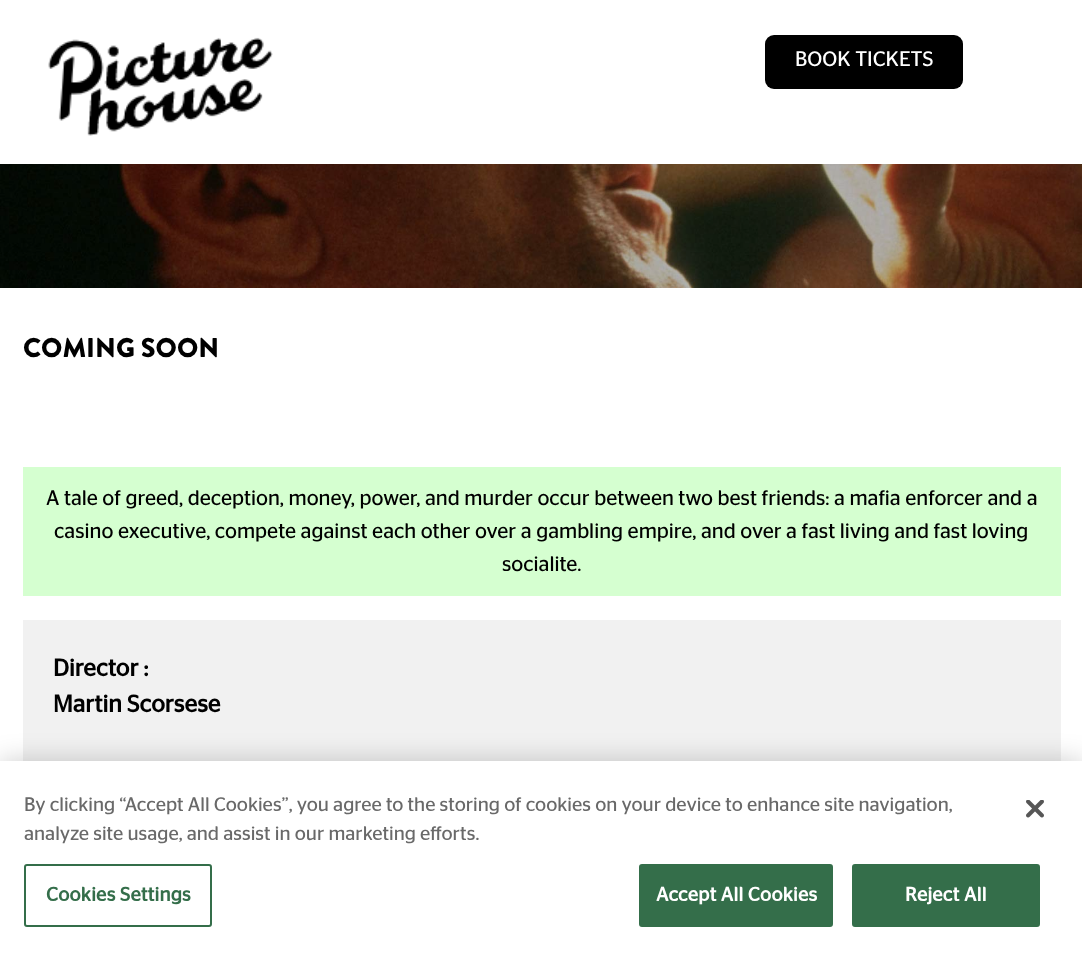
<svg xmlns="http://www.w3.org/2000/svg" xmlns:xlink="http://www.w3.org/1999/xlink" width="1082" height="956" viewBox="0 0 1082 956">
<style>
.cls-1{font:21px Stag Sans;fill:#ffffff}
.cls-2{font:900 27px Brandon Grotesque;fill:#000000}
.cls-3{font:21px Stag Sans;fill:#000000}
.cls-4{font:bold 24px Stag Sans;fill:#000000}
.cls-5{font:19.5px Stag Sans;fill:#696969}
.cls-6{font:bold 19.5px Stag Sans;letter-spacing:0.25px;fill:#346e4a}
.cls-7{font:bold 19.5px Stag Sans;letter-spacing:0.25px;fill:#ffffff}
</style>
<rect width="100%" height="100%" fill="#ffffff"/>
<image xlink:href="image0.png" x="48" y="37" width="225" height="99"/>
<rect fill="#000000" x="765" y="35" width="198" height="54" rx="9"/>
<image xlink:href="image1.png" x="0" y="164" width="1082" height="124"/>
<rect fill="#d5ffd0" x="23" y="467" width="1038" height="129"/>
<rect fill="#f1f1f1" x="23" y="620" width="1038" height="141"/>
<rect fill="#000000" fill-opacity="0.2" filter="blur(13.5px)" x="0" y="761" width="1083" height="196"/>
<rect fill="#ffffff" x="0" y="761" width="1082" height="195"/>
<rect fill="none" stroke="#346e4a" stroke-width="2" x="25" y="865" width="186" height="61" rx="2"/>
<rect fill="#346e4a" stroke="#346e4a" stroke-width="2" x="640" y="865" width="192" height="61" rx="2"/>
<rect fill="#346e4a" stroke="#346e4a" stroke-width="2" x="853" y="865" width="186" height="61" rx="2"/>
<image xlink:href="image2.png" x="1026" y="800" width="18" height="18"/>
<text class="cls-1" x="795" y="66">BOOK TICKETS</text>
<text class="cls-2" x="23" y="357">COMING SOON</text>
<text class="cls-3" x="46" y="505">A tale of greed, deception, money, power, and murder occur between two best friends: a mafia enforcer and a</text>
<text class="cls-3" x="54" y="538">casino executive, compete against each other over a gambling empire, and over a fast living and fast loving</text>
<text class="cls-3" x="502" y="571">socialite.</text>
<text class="cls-4"><tspan x="53" y="676">Director :</tspan><tspan x="53" y="712">Martin Scorsese</tspan></text>
<text class="cls-5"><tspan x="24" y="811">By clicking “Accept All Cookies”, you agree to the storing of cookies on your device to enhance site navigation,</tspan><tspan x="24" y="840">analyze site usage, and assist in our marketing efforts.</tspan></text>
<text class="cls-6" x="46" y="901">Cookies Settings</text>
<text class="cls-7" x="656" y="901">Accept All Cookies</text>
<text class="cls-7" x="905" y="901">Reject All</text>
</svg>
